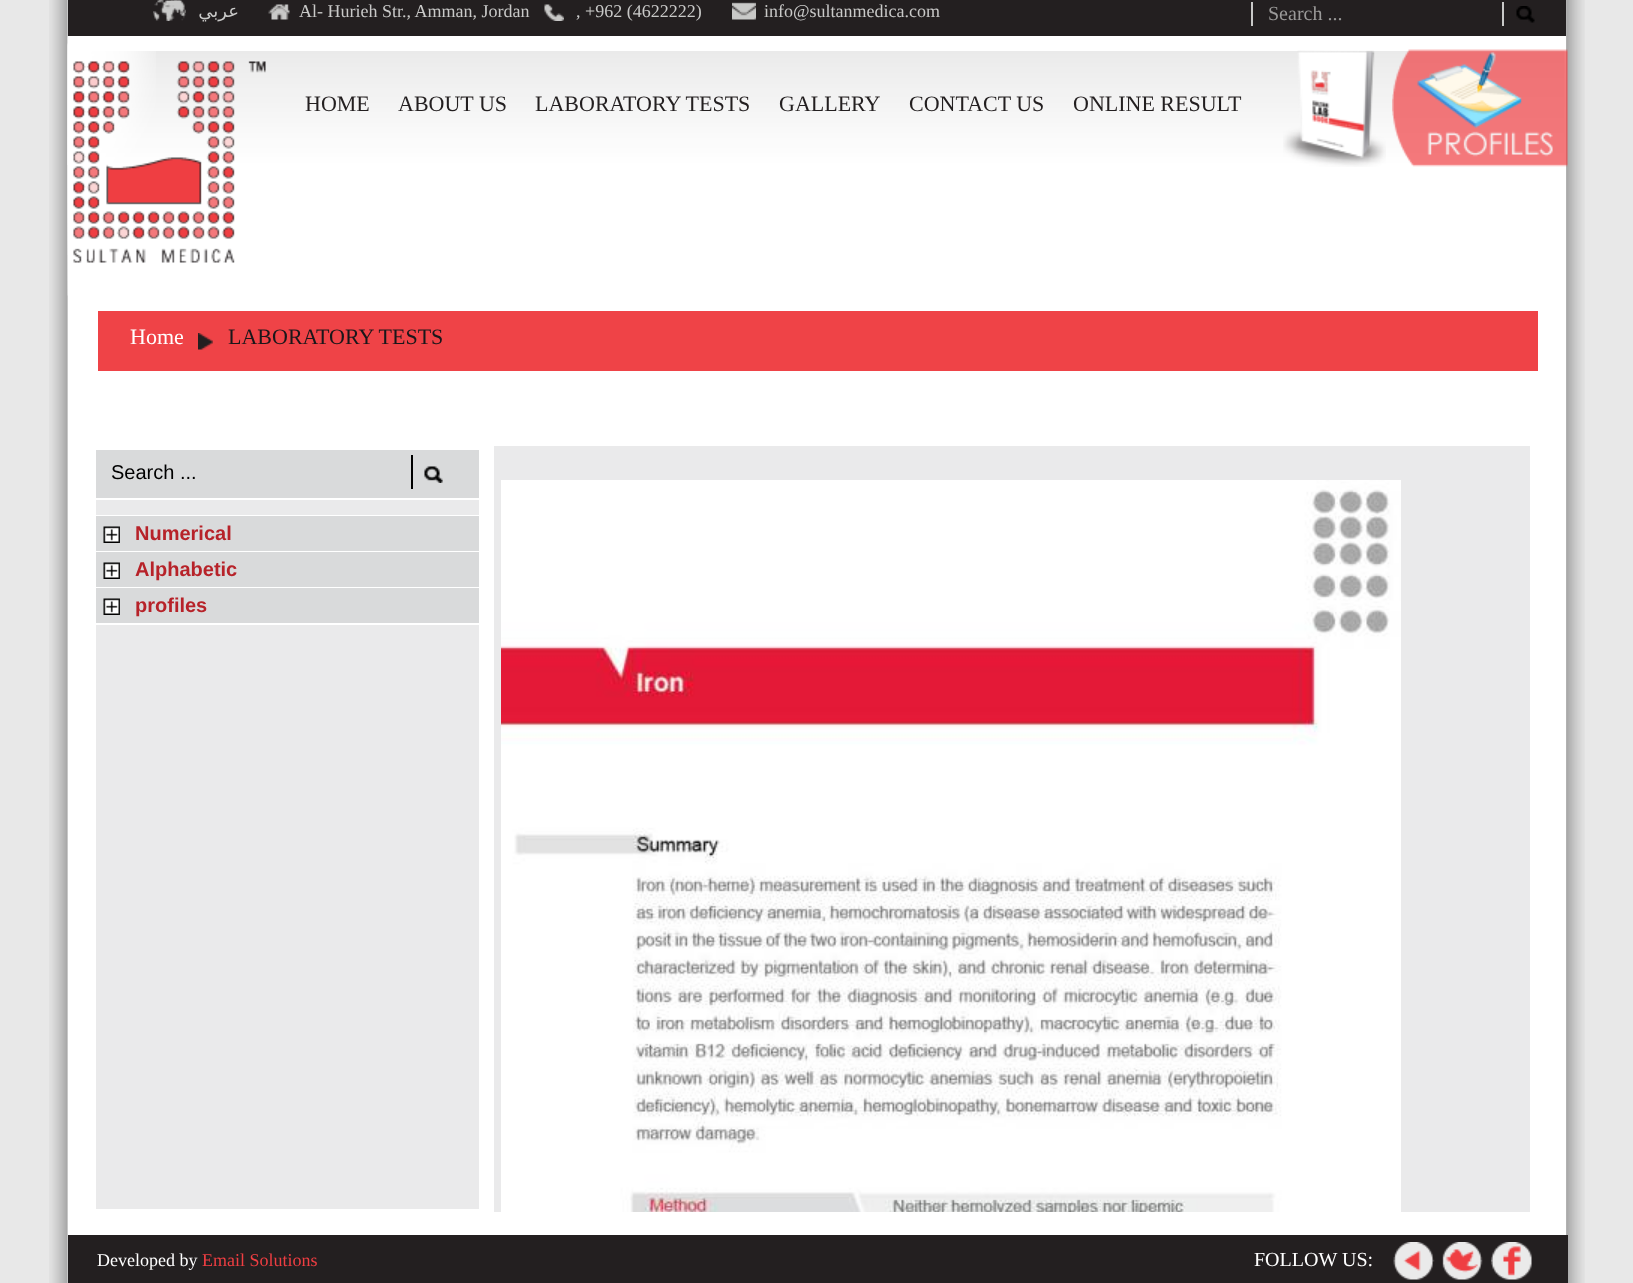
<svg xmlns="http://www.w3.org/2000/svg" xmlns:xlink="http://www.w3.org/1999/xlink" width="1633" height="1283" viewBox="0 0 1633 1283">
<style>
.cls-1{font:18px DejaVu Sans;direction:rtl;fill:#c9c9c8}
.cls-2{font:18px Liberation Serif;fill:#c9c9c8}
.cls-3{font:20px Liberation Serif;fill:#9b9a99}
.cls-4{font:22px Liberation Serif;fill:#231f20}
.cls-5{font:22px Liberation Serif;fill:#ffffff}
.cls-6{font:22px Liberation Serif;fill:#19171a}
.cls-7{font:20px Liberation Sans;fill:#000000}
.cls-8{font:bold 20px Liberation Sans;fill:#b72229}
.cls-9{font:18px Liberation Serif;fill:#ffffff}
.cls-10{font:18px Liberation Serif;fill:#ef3e42}
.cls-11{font:20px Liberation Serif;fill:#ffffff}
</style>
<rect width="100%" height="100%" fill="#e8e8e8"/>
<image xlink:href="image0.png" x="49" y="0" width="1536" height="1283"/>
<rect fill="#ffffff" x="68" y="36" width="1498" height="1199"/>
<rect fill="#231f20" x="68" y="0" width="1498" height="36"/>
<image xlink:href="image1.png" x="153" y="0" width="33" height="21"/>
<image xlink:href="image2.png" x="268" y="4" width="22" height="16"/>
<image xlink:href="image3.png" x="544" y="4" width="20" height="17"/>
<image xlink:href="image4.png" x="732" y="2" width="24" height="18"/>
<rect fill="#c9c9c8" x="1502" y="2" width="2" height="24"/>
<rect fill="#c9c9c8" x="1251" y="2" width="2" height="24"/>
<image xlink:href="image5.png" x="1516" y="6" width="19" height="17"/>
<image xlink:href="image6.png" x="67" y="36" width="1" height="260"/>
<image xlink:href="image9.png" x="67" y="51" width="1498" height="114"/>
<image xlink:href="image7.png" x="67" y="43" width="89" height="212"/>
<image xlink:href="image8.png" x="73" y="61" width="193" height="202"/>
<image xlink:href="image10.png" x="1283" y="50" width="103" height="117"/>
<image xlink:href="image11.png" x="1392" y="49" width="176" height="118"/>
<rect fill="#ef4347" x="98" y="311" width="1440" height="60"/>
<image xlink:href="image12.png" x="198" y="333" width="15" height="17"/>
<rect fill="#eaeaeb" x="96" y="500" width="383" height="709"/>
<rect fill="#d9dadb" x="96" y="450" width="383" height="48"/>
<rect fill="#000000" x="411" y="455" width="2" height="34"/>
<image xlink:href="image13.png" x="424" y="466" width="19" height="17"/>
<rect fill="#ffffff" x="96" y="515" width="383" height="1"/>
<rect fill="#d9dadb" x="96" y="516" width="383" height="35"/>
<image xlink:href="image14.png" x="103" y="526" width="17" height="17"/>
<rect fill="#ffffff" x="96" y="551" width="383" height="1"/>
<rect fill="#d9dadb" x="96" y="552" width="383" height="35"/>
<image xlink:href="image14.png" x="103" y="562" width="17" height="17"/>
<rect fill="#ffffff" x="96" y="587" width="383" height="1"/>
<rect fill="#d9dadb" x="96" y="588" width="383" height="35"/>
<image xlink:href="image14.png" x="103" y="598" width="17" height="17"/>
<rect fill="#ffffff" x="96" y="623" width="383" height="2"/>
<rect fill="#eaeaeb" x="494" y="446" width="1036" height="766"/>
<image xlink:href="image15.png" x="501" y="480" width="900" height="732"/>
<rect fill="#231f20" x="68" y="1235" width="1500" height="48"/>
<image xlink:href="image16.png" x="1393" y="1242" width="42" height="38"/>
<image xlink:href="image17.png" x="1442" y="1242" width="41" height="38"/>
<image xlink:href="image18.png" x="1491" y="1242" width="41" height="38"/>
<text class="cls-1" x="239" y="17">عربي</text>
<text class="cls-2" x="299" y="17">Al- Hurieh Str., Amman, Jordan</text>
<text class="cls-2" x="576" y="17">, +962 (4622222)</text>
<text class="cls-2" x="764" y="17">info@sultanmedica.com</text>
<text class="cls-3" x="1268" y="20">Search ...</text>
<text class="cls-4" x="305" y="111">HOME</text>
<text class="cls-4" x="398" y="111">ABOUT US</text>
<text class="cls-4" x="535" y="111">LABORATORY TESTS</text>
<text class="cls-4" x="779" y="111">GALLERY</text>
<text class="cls-4" x="909" y="111">CONTACT US</text>
<text class="cls-4" x="1073" y="111">ONLINE RESULT</text>
<text class="cls-5" x="130" y="344">Home</text>
<text class="cls-6" x="228" y="344">LABORATORY TESTS</text>
<text class="cls-7" x="111" y="479">Search ...</text>
<text class="cls-8"><tspan x="135" y="540">Numerical</tspan><tspan x="135" y="576">Alphabetic</tspan><tspan x="135" y="612">profiles</tspan></text>
<text class="cls-9" x="97" y="1266">Developed by</text>
<text class="cls-10" x="202" y="1266">Email Solutions</text>
<text class="cls-11" x="1254" y="1266">FOLLOW US:</text>
</svg>
